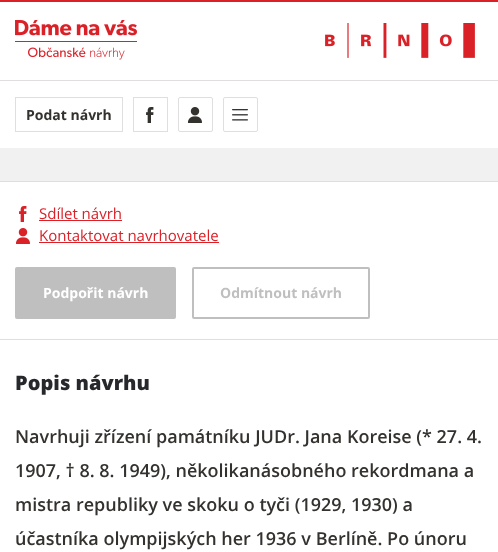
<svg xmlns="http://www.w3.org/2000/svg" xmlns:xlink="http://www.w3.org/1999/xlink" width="498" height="552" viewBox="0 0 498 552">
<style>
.cls-1{font:bold 14px Open Sans;fill:#34322f}
.cls-2{font:15px Open Sans;fill:#da2128}
.cls-3{font:bold 14px Open Sans;fill:#ffffff}
.cls-4{font:bold 14px Open Sans;fill:#bfbfbf}
.cls-5{font:800 20px Open Sans;fill:#27282c}
.cls-6{font:600 18px Open Sans;fill:#34322f}
</style>
<rect width="100%" height="100%" fill="#ffffff"/>
<rect fill="#da2128" x="0" y="0" width="498" height="2"/>
<rect fill="#e0dede" x="0" y="80" width="498" height="1"/>
<image xlink:href="image0.png" x="15" y="20" width="122" height="40"/>
<image xlink:href="image1.png" x="325" y="23" width="150" height="35"/>
<rect fill="none" stroke="#e0dede" x="15.5" y="97.5" width="107" height="34"/>
<rect fill="none" stroke="#e0dede" x="133.5" y="97.5" width="34" height="34"/>
<image xlink:href="image2.png" x="146" y="107" width="8" height="16"/>
<rect fill="none" stroke="#e0dede" x="178.5" y="97.5" width="34" height="34" rx="1.5"/>
<image xlink:href="image3.png" x="187" y="107" width="15" height="16"/>
<rect fill="none" stroke="#e0dede" x="223.5" y="97.5" width="34" height="34" rx="1.5"/>
<image xlink:href="image4.png" x="232" y="109" width="16" height="12"/>
<rect fill="#f1f1f1" x="0" y="148" width="498" height="33"/>
<rect fill="#e0dede" x="0" y="181" width="498" height="1"/>
<rect fill="#e0dede" x="0" y="339" width="498" height="1"/>
<image xlink:href="image5.png" x="19" y="206" width="8" height="16"/>
<rect fill="#da2128" x="39" y="220" width="83" height="1"/>
<image xlink:href="image6.png" x="15" y="228" width="15" height="16"/>
<rect fill="#da2128" x="39" y="242" width="180" height="1"/>
<rect fill="#bfbfbf" stroke="#bfbfbf" stroke-width="2" x="16" y="268" width="159" height="50" rx="1"/>
<rect fill="none" stroke="#bfbfbf" stroke-width="2" x="193" y="268" width="176" height="50" rx="1"/>
<text class="cls-1" x="26" y="120">Podat návrh</text>
<text class="cls-2"><tspan x="39" y="219">Sdílet návrh</tspan><tspan x="39" y="241">Kontaktovat navrhovatele</tspan></text>
<text class="cls-3" x="43" y="298">Podpořit návrh</text>
<text class="cls-4" x="220" y="298">Odmítnout návrh</text>
<text class="cls-5" x="15" y="390">Popis návrhu</text>
<text class="cls-6"><tspan x="15" y="443">Navrhuji zřízení památníku JUDr. Jana Koreise (* 27. 4.</tspan><tspan x="15" y="477">1907, † 8. 8. 1949), několikanásobného rekordmana a</tspan><tspan x="15" y="511">mistra republiky ve skoku o tyči (1929, 1930) a</tspan><tspan x="15" y="545">účastníka olympijských her 1936 v Berlíně. Po únoru</tspan></text>
</svg>
